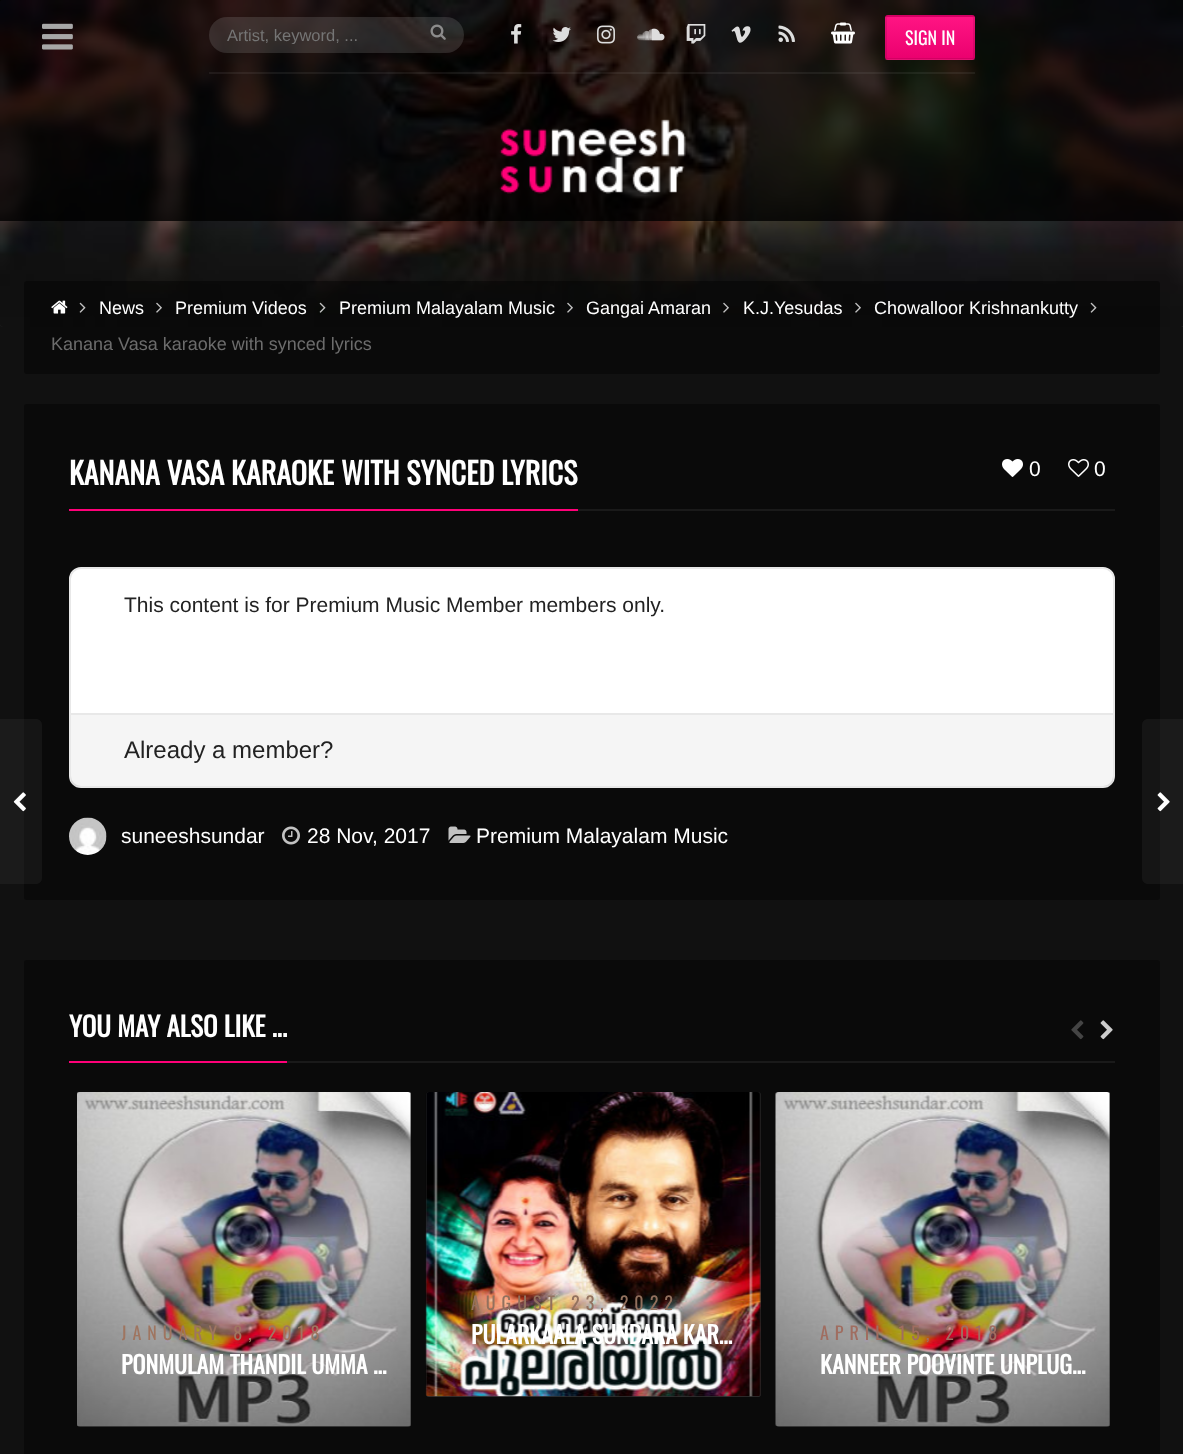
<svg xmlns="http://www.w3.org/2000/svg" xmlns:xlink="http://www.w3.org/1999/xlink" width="1183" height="1454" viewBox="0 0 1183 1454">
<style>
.cls-1{font:16.5px Liberation Sans;fill:#757575}
.cls-2{font:18px Oswald;fill:#ffffff}
.cls-3{font:18px Liberation Sans;fill:#ffffff}
.cls-4{font:18px Liberation Sans;fill:#6c6c6c}
.cls-5{font:bold 30px Oswald;fill:#ffffff}
.cls-6{font:21px Liberation Sans;fill:#ffffff}
.cls-7{font:21px Liberation Sans;fill:#222222}
.cls-8{font:24px Liberation Sans;fill:#222222}
.cls-9{font:bold 27px Oswald;fill:#ffffff}
.cls-10{font:18px Oswald;letter-spacing:6px;fill:#92715e}
.cls-11{font:bold 24px Oswald;fill:#ffffff}
.cls-12{font:18px Oswald;letter-spacing:6px;fill:#9f7560}
.cls-13{font:18px Oswald;letter-spacing:6px;fill:#a06d60}
</style>
<defs>
<linearGradient id="g1" gradientUnits="userSpaceOnUse" x1="887" y1="17" x2="887" y2="-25"><stop offset="0" stop-color="#000000" stop-opacity="0.08"/><stop offset="0.5" stop-color="#808080" stop-opacity="0.08"/><stop offset="1" stop-color="#ffffff" stop-opacity="0.08"/></linearGradient>
<linearGradient id="g2" gradientUnits="userSpaceOnUse" x1="887" y1="59" x2="887" y2="17"><stop offset="0" stop-color="#000000" stop-opacity="0.08"/><stop offset="0.5" stop-color="#808080" stop-opacity="0.08"/><stop offset="1" stop-color="#ffffff" stop-opacity="0.08"/></linearGradient>
<linearGradient id="g3" gradientUnits="userSpaceOnUse" x1="887" y1="101" x2="887" y2="59"><stop offset="0" stop-color="#000000" stop-opacity="0.08"/><stop offset="0.5" stop-color="#808080" stop-opacity="0.08"/><stop offset="1" stop-color="#ffffff" stop-opacity="0.08"/></linearGradient>
<clipPath id="clip1"><rect x="227" y="26" width="219" height="18"/></clipPath>
<clipPath id="clip2"><rect x="122" y="1319" width="267" height="27"/></clipPath>
</defs>
<rect width="100%" height="100%" fill="#111111"/>
<rect fill="#2f2f2f" x="0" y="0" width="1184" height="327" rx="3"/>
<image xlink:href="image0.png" x="0" y="0" width="1183" height="327"/>
<rect fill="#000000" fill-opacity="0.8" x="0" y="0" width="1183" height="221"/>
<image xlink:href="image1.png" x="42" y="23" width="31" height="27"/>
<rect fill="#a7a7a7" fill-opacity="0.1" x="209" y="72" width="766" height="2"/>
<rect fill="#a7a7a7" fill-opacity="0.2" x="209" y="17" width="255" height="36" rx="18"/>
<image xlink:href="image2.png" x="430" y="24" width="16" height="16"/>
<image xlink:href="image3.png" x="511" y="24" width="11" height="20"/>
<image xlink:href="image4.png" x="552" y="27" width="19" height="15"/>
<image xlink:href="image5.png" x="597" y="25" width="18" height="19"/>
<image xlink:href="image6.png" x="637" y="28" width="28" height="13"/>
<image xlink:href="image7.png" x="686" y="24" width="20" height="20"/>
<image xlink:href="image8.png" x="731" y="26" width="20" height="17"/>
<image xlink:href="image9.png" x="778" y="25" width="17" height="17"/>
<image xlink:href="image10.png" x="831" y="22" width="24" height="22"/>
<rect fill="#ff0078" x="885" y="15" width="90" height="45" rx="3"/>
<rect fill="url(#g1)" x="885" y="15" width="90" height="2"/>
<rect fill="url(#g2)" x="885" y="17" width="90" height="42"/>
<rect fill="url(#g3)" x="885" y="59" width="90" height="1"/>
<rect fill="none" stroke="#000000" stroke-opacity="0.1" stroke-width="2" x="886" y="16" width="88" height="43" rx="2"/>
<image xlink:href="image11.png" x="499" y="119" width="187" height="75"/>
<rect fill="#000000" fill-opacity="0.4" x="24" y="281" width="1136" height="93" rx="3"/>
<image xlink:href="image12.png" x="51" y="300" width="17" height="14"/>
<image xlink:href="image13.png" x="79" y="302" width="7" height="11"/>
<image xlink:href="image14.png" x="156" y="302" width="6" height="11"/>
<image xlink:href="image15.png" x="319" y="302" width="7" height="11"/>
<image xlink:href="image16.png" x="567" y="302" width="6" height="11"/>
<image xlink:href="image17.png" x="723" y="302" width="6" height="11"/>
<image xlink:href="image14.png" x="855" y="302" width="6" height="11"/>
<image xlink:href="image18.png" x="1090" y="302" width="7" height="11"/>
<rect fill="#0a0a0a" x="24" y="404" width="1136" height="496" rx="3"/>
<rect fill="#ff0078" x="69" y="509" width="509" height="2"/>
<image xlink:href="image19.png" x="1002" y="459" width="21" height="18"/>
<image xlink:href="image20.png" x="1068" y="459" width="21" height="18"/>
<rect fill="#1a1a1a" x="578" y="509" width="537" height="2"/>
<rect fill="#ffffff" stroke="#e8e8e8" stroke-width="2" x="70" y="568" width="1044" height="219" rx="11"/>
<rect fill="#000000" fill-opacity="0.04" x="71" y="715" width="1042" height="71"/>
<rect fill="#e8e8e8" x="71" y="713" width="1042" height="2"/>
<image xlink:href="image21.png" x="69" y="817" width="38" height="38"/>
<image xlink:href="image22.png" x="282" y="826" width="18" height="19"/>
<image xlink:href="image23.png" x="448" y="826" width="23" height="17"/>
<path fill="#a7a7a7" fill-opacity="0.07" d="M-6 719H36C39.5 719 42 721.5 42 725V878C42 881.5 39.5 884 36 884H-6Z"/>
<image xlink:href="image24.png" x="13" y="792" width="13" height="20"/>
<path fill="#a7a7a7" fill-opacity="0.07" d="M1148 719H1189V884H1148C1144.5 884 1142 881.5 1142 878V725C1142 721.5 1144.5 719 1148 719Z"/>
<image xlink:href="image25.png" x="1157" y="792" width="13" height="20"/>
<rect fill="#0a0a0a" x="24" y="960" width="1136" height="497" rx="3"/>
<rect fill="#ff0078" x="69" y="1061" width="218" height="2"/>
<rect fill="#1a1a1a" x="287" y="1061" width="828" height="2"/>
<image xlink:href="image26.png" x="1071" y="1020" width="13" height="20"/>
<image xlink:href="image27.png" x="1100" y="1020" width="13" height="20"/>
<rect fill="#111111" x="426" y="1092" width="335" height="305" rx="3"/>
<rect fill="#a7a7a7" fill-opacity="0.2" x="426" y="1092" width="335" height="305" rx="3"/>
<image xlink:href="image28.png" x="425" y="1092" width="336" height="305"/>
<rect fill="#111111" x="77" y="1092" width="334" height="335" rx="3"/>
<rect fill="#a7a7a7" fill-opacity="0.2" x="77" y="1092" width="334" height="335" rx="3"/>
<image xlink:href="image29.png" x="77" y="1092" width="334" height="335"/>
<rect fill="#111111" x="776" y="1092" width="334" height="335" rx="3"/>
<rect fill="#a7a7a7" fill-opacity="0.2" x="776" y="1092" width="334" height="335" rx="3"/>
<image xlink:href="image30.png" x="775" y="1092" width="335" height="335"/>
<g clip-path="url(#clip1)">
<text class="cls-1" x="227" y="41">Artist, keyword, ...</text>
</g>
<text class="cls-2" x="905" y="45">SIGN IN</text>
<text class="cls-3" x="99" y="314">News</text>
<text class="cls-3" x="175" y="314">Premium Videos</text>
<text class="cls-3" x="339" y="314">Premium Malayalam Music</text>
<text class="cls-3" x="586" y="314">Gangai Amaran</text>
<text class="cls-3" x="743" y="314">K.J.Yesudas</text>
<text class="cls-3" x="874" y="314">Chowalloor Krishnankutty</text>
<text class="cls-4" x="51" y="350">Kanana Vasa karaoke with synced lyrics</text>
<text class="cls-5" x="69" y="485">KANANA VASA KARAOKE WITH SYNCED LYRICS</text>
<text class="cls-6" x="1029" y="476">0</text>
<text class="cls-6" x="1094" y="476">0</text>
<text class="cls-7" x="124" y="612">This content is for Premium Music Member members only.</text>
<text class="cls-8" x="124" y="758">Already a member?</text>
<text class="cls-6" x="121" y="843">suneeshsundar</text>
<text class="cls-6" x="307" y="843">28 Nov, 2017</text>
<text class="cls-6" x="476" y="843">Premium Malayalam Music</text>
<text class="cls-9" x="69" y="1037">YOU MAY ALSO LIKE ...</text>
<text class="cls-10" x="471" y="1310">AUGUST 23, 2022</text>
<text class="cls-11" x="471" y="1344">PULARKAALA SUNDARA KAR…</text>
<g clip-path="url(#clip2)">
<text class="cls-12" x="121" y="1340">JANUARY 8, 2018</text>
</g>
<text class="cls-11" x="121" y="1374">PONMULAM THANDIL UMMA …</text>
<text class="cls-13" x="820" y="1340">APRIL 15, 2018</text>
<text class="cls-11" x="820" y="1374">KANNEER POOVINTE UNPLUG…</text>
</svg>
